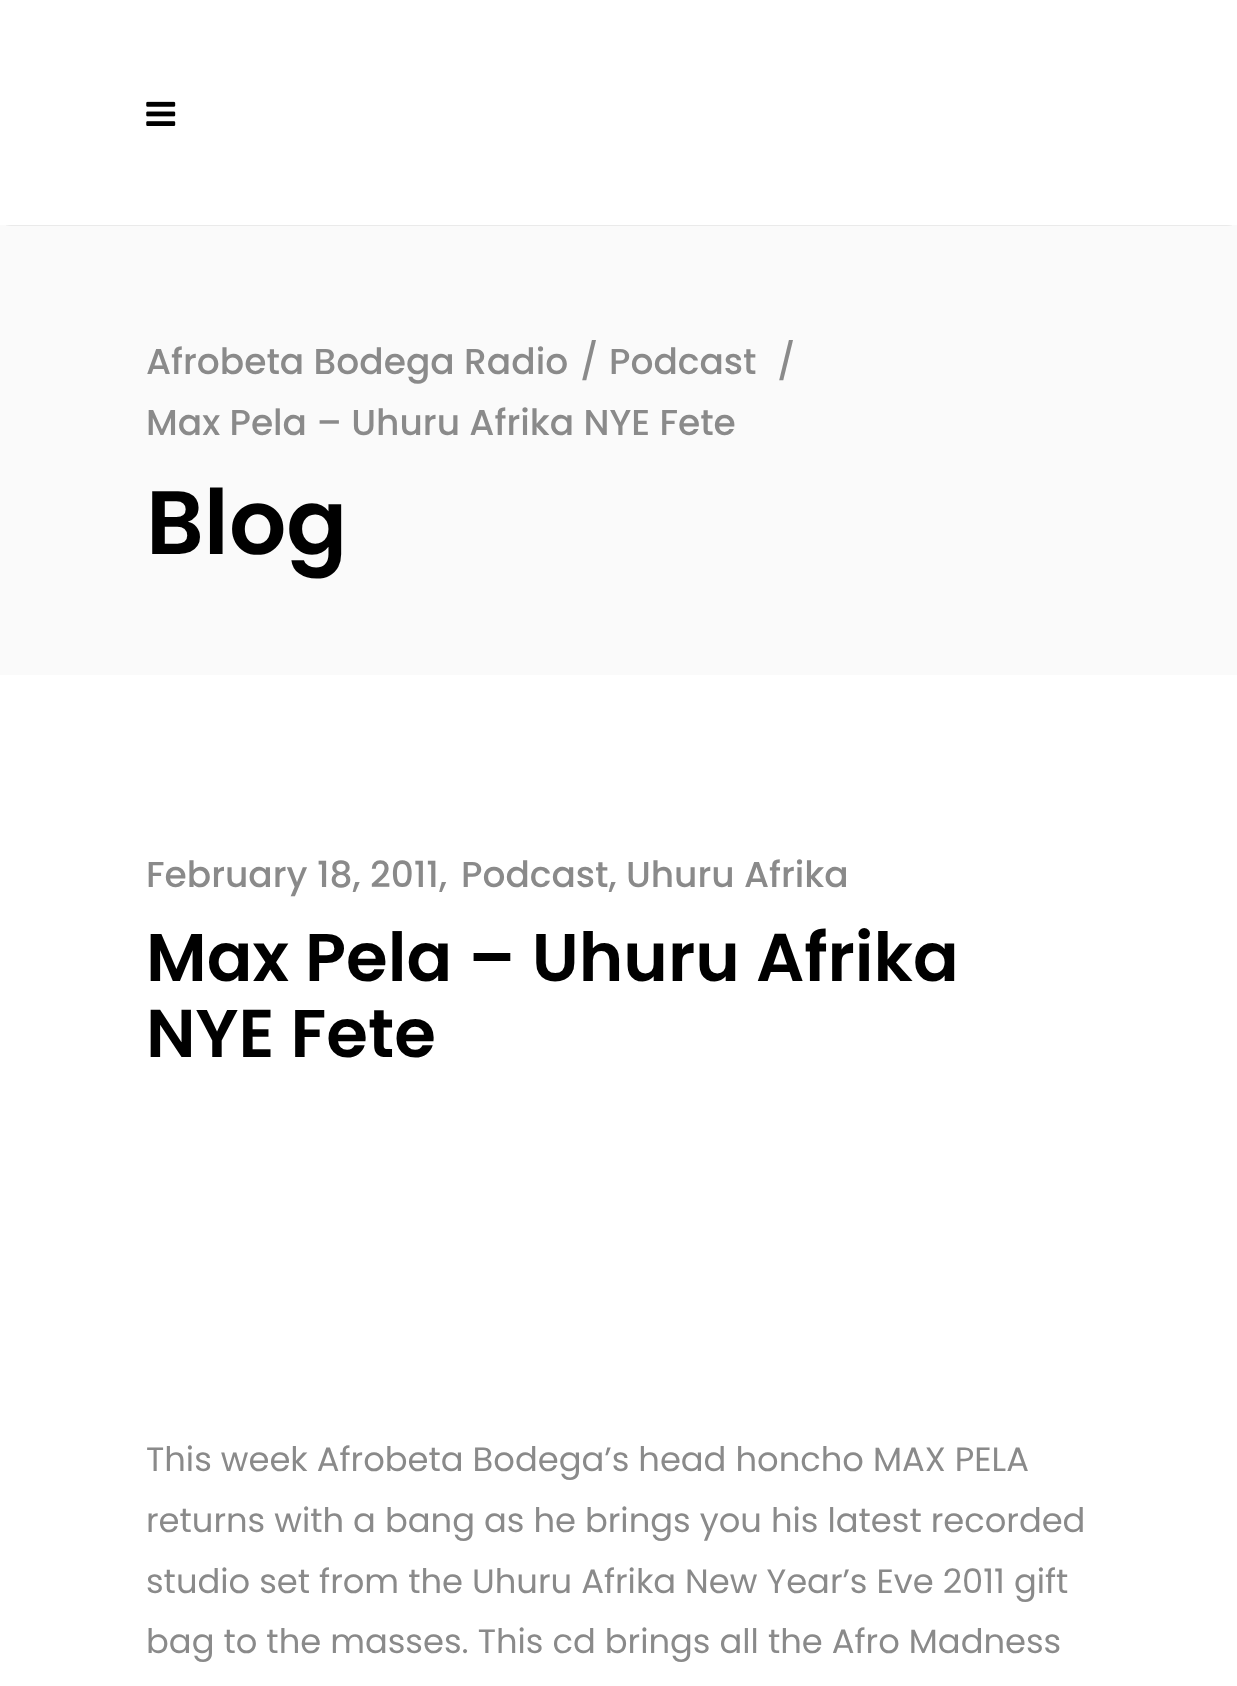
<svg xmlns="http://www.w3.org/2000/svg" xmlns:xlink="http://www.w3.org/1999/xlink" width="1237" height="1686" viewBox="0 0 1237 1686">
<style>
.cls-1{font:500 36px Poppins;fill:#8a8a8a}
.cls-2{font:600 90px Poppins;fill:#000000}
.cls-3{font:600 67.5px Poppins;fill:#000000}
.cls-4{font:33.75px Poppins;fill:#8a8a8a}
</style>
<defs>
<clipPath id="clip1"><rect x="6" y="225" width="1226" height="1"/></clipPath>
</defs>
<rect width="100%" height="100%" fill="#ffffff"/>
<rect fill="#fafafa" x="0" y="225" width="1237" height="450"/>
<g clip-path="url(#clip1)">
<rect fill="#000000" fill-opacity="0.5" filter="blur(2px)" x="7" y="11" width="1224" height="212"/>
</g>
<image xlink:href="image0.png" x="146" y="101" width="30" height="25"/>
<text class="cls-1" x="146" y="374">Afrobeta Bodega Radio</text>
<text class="cls-1" x="580" y="374">/</text>
<text class="cls-1" x="609" y="374">Podcast</text>
<text class="cls-1" x="777" y="374">/</text>
<text class="cls-1" x="146" y="435">Max Pela – Uhuru Afrika NYE Fete</text>
<text class="cls-2" x="146" y="554">Blog</text>
<text class="cls-1" x="146" y="887">February 18, 2011,</text>
<text class="cls-1" x="461" y="887">Podcast, Uhuru Afrika</text>
<text class="cls-3"><tspan x="146" y="981">Max Pela – Uhuru Afrika</tspan><tspan x="146" y="1057">NYE Fete</tspan></text>
<text class="cls-4"><tspan x="146" y="1471">This week Afrobeta Bodega’s head honcho MAX PELA</tspan><tspan x="146" y="1532">returns with a bang as he brings you his latest recorded</tspan><tspan x="146" y="1593">studio set from the Uhuru Afrika New Year’s Eve 2011 gift</tspan><tspan x="146" y="1653">bag to the masses. This cd brings all the Afro Madness</tspan></text>
</svg>
